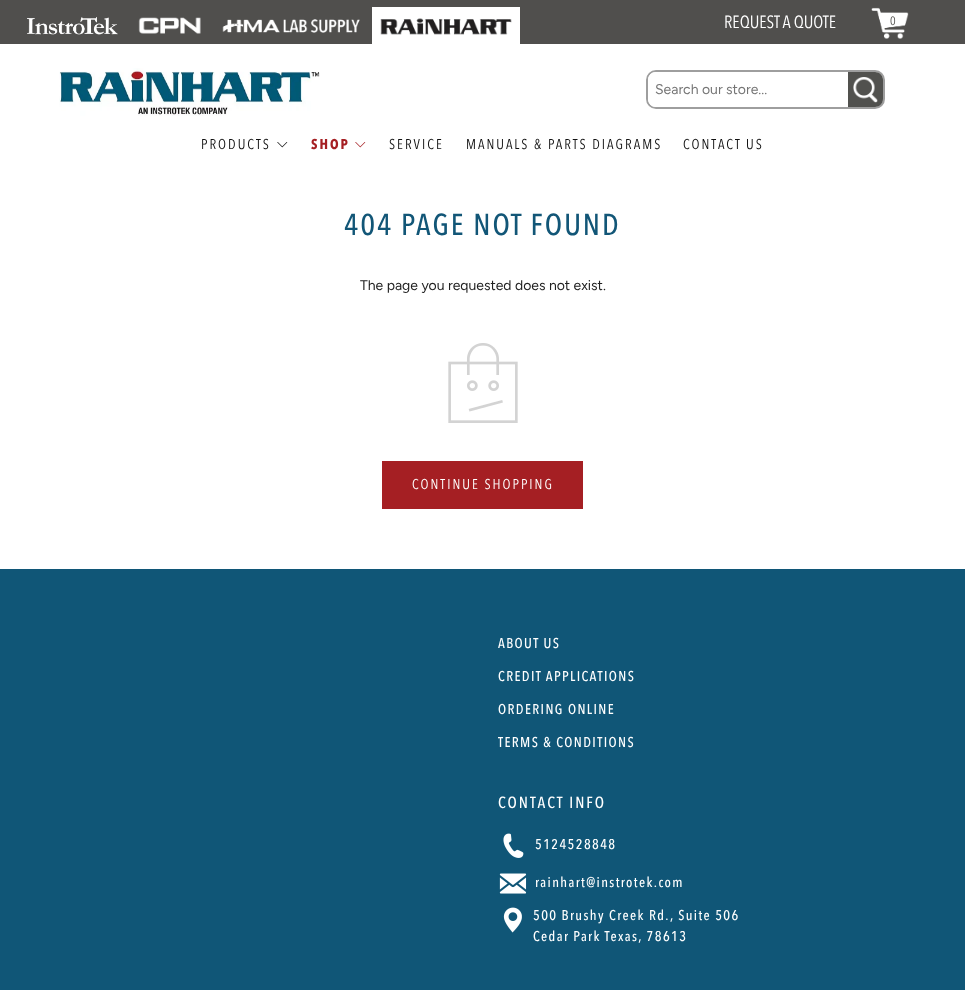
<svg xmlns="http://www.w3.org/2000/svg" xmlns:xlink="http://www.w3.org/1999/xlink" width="965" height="990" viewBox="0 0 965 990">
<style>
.cls-1{font:17.5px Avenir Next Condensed;fill:#ffffff}
.cls-2{font:12px Avenir Next Condensed;fill:#51514e}
.cls-3{font:14px Figtree;fill:#757575}
.cls-4{font:14px Avenir Next Condensed;letter-spacing:2px;fill:#111111}
.cls-5{font:bold 14px Avenir Next Condensed;letter-spacing:2px;fill:#a51f23}
.cls-6{font:500 30px Avenir Next Condensed;letter-spacing:2px;fill:#125677}
.cls-7{font:14px Figtree;fill:#212121}
.cls-8{font:14px Avenir Next Condensed;letter-spacing:2px;fill:#ffffff}
.cls-9{font:500 14px Avenir Next Condensed;letter-spacing:1.4px;fill:#ffffff}
.cls-10{font:500 16px Avenir Next Condensed;letter-spacing:2px;fill:#ffffff}
</style>
<rect width="100%" height="100%" fill="#ffffff"/>
<rect fill="#504f4d" x="0" y="0" width="965" height="44"/>
<image xlink:href="image0.png" x="27" y="17" width="91" height="18"/>
<image xlink:href="image1.png" x="138" y="17" width="63" height="17"/>
<image xlink:href="image2.png" x="222" y="19" width="138" height="14"/>
<rect fill="#ffffff" x="372" y="7" width="148" height="37"/>
<image xlink:href="image3.png" x="380" y="18" width="132" height="17"/>
<image xlink:href="image4.png" x="871" y="7" width="38" height="32"/>
<image xlink:href="image5.png" x="59" y="68" width="261" height="48"/>
<rect fill="none" stroke="#9e9e9e" stroke-width="2" x="647" y="71" width="237" height="37" rx="9"/>
<path fill="#ffffff" d="M656 72H848V107H656C651.5 107 648 103.5 648 99V80C648 75.5 651.5 72 656 72Z"/>
<path fill="#51514e" d="M848 72H875C879.5 72 883 75.5 883 80V99C883 103.5 879.5 107 875 107H848Z"/>
<image xlink:href="image6.png" x="853" y="77" width="25" height="26"/>
<image xlink:href="image7.png" x="277" y="142" width="11" height="6"/>
<image xlink:href="image8.png" x="355" y="142" width="11" height="6"/>
<image xlink:href="image9.png" x="448" y="343" width="70" height="80"/>
<rect fill="#a51f23" x="382" y="461" width="201" height="48"/>
<rect fill="#105677" x="0" y="569" width="965" height="421"/>
<image xlink:href="image10.png" x="503" y="833" width="21" height="25"/>
<image xlink:href="image11.png" x="499" y="873" width="28" height="21"/>
<image xlink:href="image12.png" x="503" y="907" width="19" height="26"/>
<text class="cls-1" x="724" y="28">REQUEST A QUOTE</text>
<text class="cls-2" x="890" y="25">0</text>
<text class="cls-3" x="655" y="94">Search our store...</text>
<text class="cls-4" x="201" y="149">PRODUCTS</text>
<text class="cls-5" x="311" y="149">SHOP</text>
<text class="cls-4" x="389" y="149">SERVICE</text>
<text class="cls-4" x="466" y="149">MANUALS &amp; PARTS DIAGRAMS</text>
<text class="cls-4" x="683" y="149">CONTACT US</text>
<text class="cls-6" x="344" y="235">404 PAGE NOT FOUND</text>
<text class="cls-7" x="360" y="290">The page you requested does not exist.</text>
<text class="cls-8" x="412" y="489">CONTINUE SHOPPING</text>
<text class="cls-9" x="498" y="648">ABOUT US</text>
<text class="cls-9" x="498" y="681">CREDIT APPLICATIONS</text>
<text class="cls-9" x="498" y="714">ORDERING ONLINE</text>
<text class="cls-9" x="498" y="747">TERMS &amp; CONDITIONS</text>
<text class="cls-10" x="498" y="808">CONTACT INFO</text>
<text class="cls-9" x="535" y="849">5124528848</text>
<text class="cls-9" x="535" y="887">rainhart@instrotek.com</text>
<text class="cls-9"><tspan x="533" y="920">500 Brushy Creek Rd., Suite 506</tspan><tspan x="533" y="941">Cedar Park Texas, 78613</tspan></text>
</svg>
